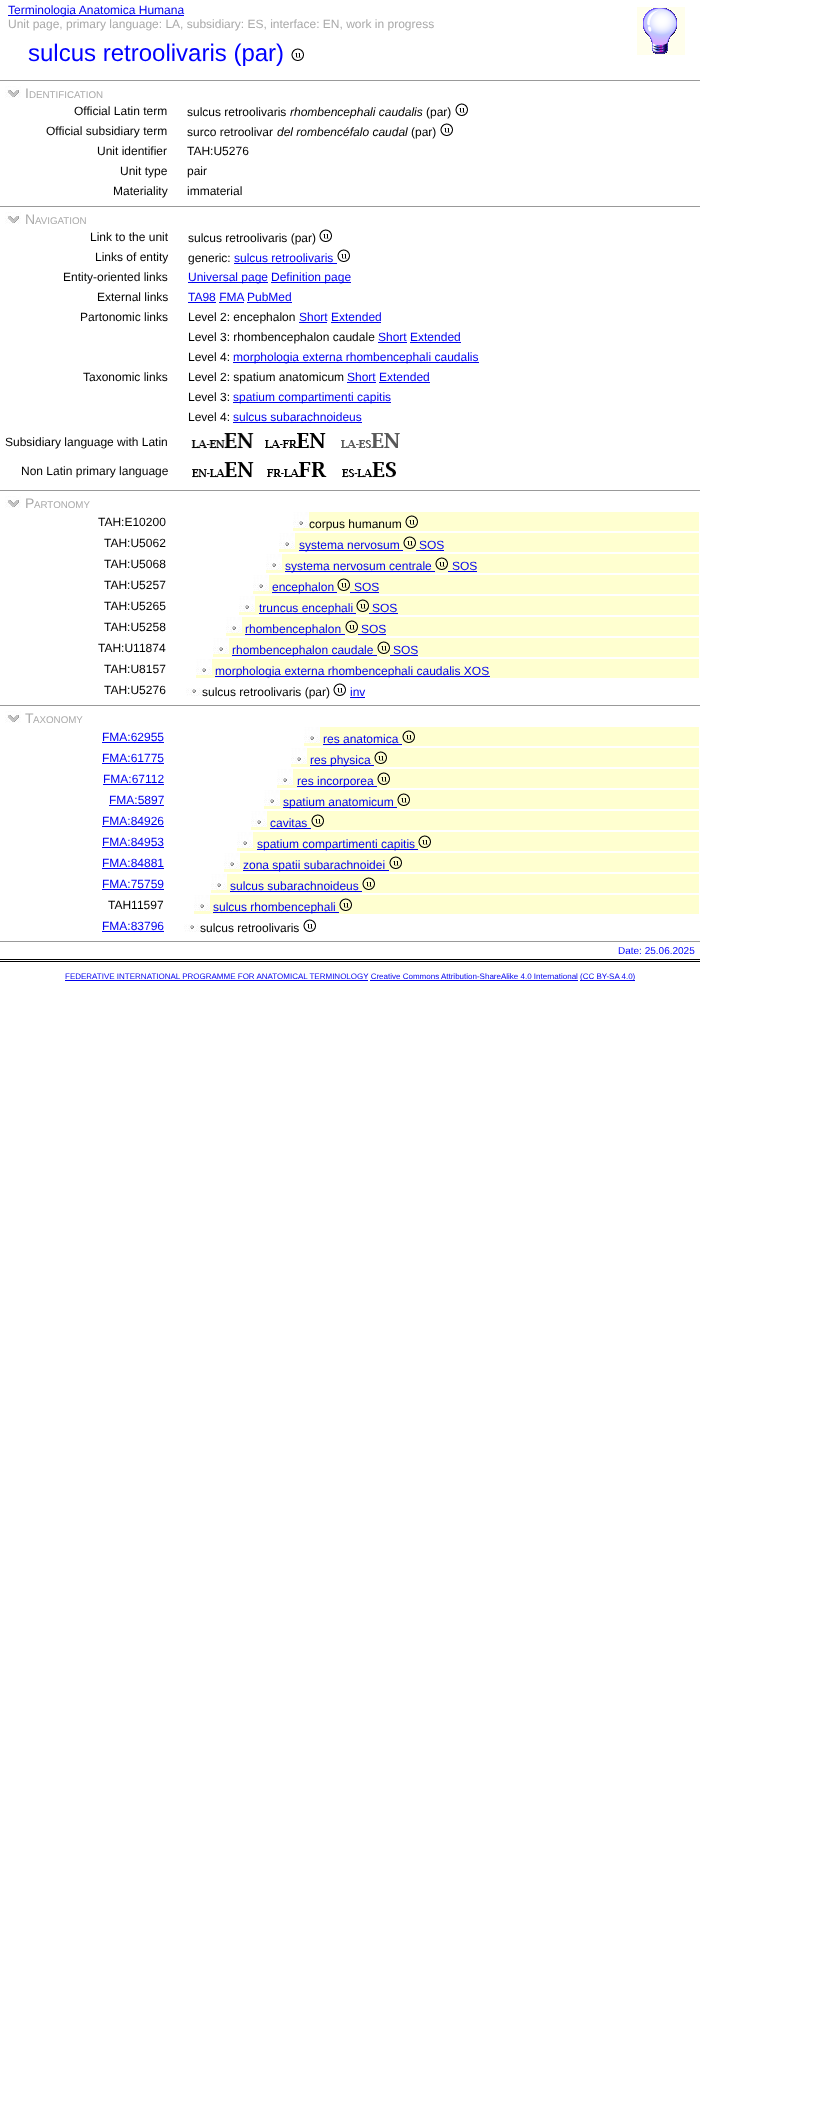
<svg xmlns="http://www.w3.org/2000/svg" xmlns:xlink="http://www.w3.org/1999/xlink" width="833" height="2116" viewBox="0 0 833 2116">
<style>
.cls-1{font:12px Liberation Sans;fill:#0000ee}
.cls-2{font:12px Liberation Sans;fill:#aaaaaa}
.cls-3{font:24px Liberation Sans;fill:#0000ff}
.cls-4{font:14px Liberation Sans;fill:#aaaaaa}
.cls-5{font:9.75px Liberation Sans;fill:#aaaaaa}
.cls-6{font:12px Liberation Sans;fill:#000000}
.cls-7{font:italic 12px Liberation Sans;fill:#000000}
.cls-8{font:10px Liberation Sans;fill:#0000ff}
.cls-9{font:8px Liberation Sans;fill:#0000ee}
</style>
<rect width="100%" height="100%" fill="#ffffff"/>
<rect fill="#0000ee" x="8" y="15" width="176" height="1"/>
<image xlink:href="image0.png" x="291" y="48" width="13" height="13"/>
<image xlink:href="image1.png" x="637" y="7" width="48" height="48"/>
<rect fill="#999999" x="0" y="80" width="700" height="1"/>
<image xlink:href="image2.png" x="5" y="86" width="16" height="12"/>
<image xlink:href="image0.png" x="455" y="103" width="13" height="13"/>
<image xlink:href="image0.png" x="440" y="123" width="13" height="13"/>
<rect fill="#999999" x="0" y="206" width="700" height="1"/>
<image xlink:href="image2.png" x="5" y="212" width="16" height="12"/>
<image xlink:href="image0.png" x="319" y="229" width="13" height="13"/>
<rect fill="#0000ee" x="234" y="263" width="103" height="1"/>
<image xlink:href="image0.png" x="337" y="249" width="13" height="13"/>
<rect fill="#0000ee" x="188" y="282" width="80" height="1"/>
<rect fill="#0000ee" x="271" y="282" width="80" height="1"/>
<rect fill="#0000ee" x="188" y="302" width="28" height="1"/>
<rect fill="#0000ee" x="247" y="302" width="45" height="1"/>
<rect fill="#0000ee" x="219" y="302" width="25" height="1"/>
<rect fill="#0000ee" x="299" y="322" width="28" height="1"/>
<rect fill="#0000ee" x="331" y="322" width="50" height="1"/>
<rect fill="#0000ee" x="378" y="342" width="29" height="1"/>
<rect fill="#0000ee" x="410" y="342" width="51" height="1"/>
<rect fill="#0000ee" x="233" y="362" width="246" height="1"/>
<rect fill="#0000ee" x="347" y="382" width="29" height="1"/>
<rect fill="#0000ee" x="379" y="382" width="51" height="1"/>
<rect fill="#0000ee" x="233" y="402" width="158" height="1"/>
<rect fill="#0000ee" x="233" y="422" width="129" height="1"/>
<image xlink:href="image3.png" x="191" y="433" width="63" height="16"/>
<image xlink:href="image4.png" x="265" y="433" width="61" height="15"/>
<image xlink:href="image5.png" x="341" y="433" width="59" height="15"/>
<image xlink:href="image6.png" x="192" y="462" width="62" height="16"/>
<image xlink:href="image7.png" x="267" y="462" width="60" height="15"/>
<image xlink:href="image8.png" x="342" y="462" width="54" height="16"/>
<rect fill="#999999" x="0" y="490" width="700" height="1"/>
<image xlink:href="image2.png" x="5" y="496" width="16" height="12"/>
<rect fill="#ffffd0" x="293" y="512" width="406" height="19"/>
<image xlink:href="image9.png" x="293" y="512" width="16" height="16"/>
<image xlink:href="image10.png" x="405" y="515" width="13" height="13"/>
<rect fill="#ffffd0" x="279" y="533" width="420" height="19"/>
<image xlink:href="image9.png" x="279" y="533" width="16" height="16"/>
<rect fill="#0000ee" x="299" y="550" width="104" height="1"/>
<rect fill="#0000ee" x="416" y="550" width="28" height="1"/>
<image xlink:href="image10.png" x="403" y="536" width="13" height="13"/>
<rect fill="#ffffd0" x="266" y="554" width="433" height="19"/>
<image xlink:href="image9.png" x="266" y="554" width="16" height="16"/>
<rect fill="#0000ee" x="285" y="571" width="150" height="1"/>
<rect fill="#0000ee" x="448" y="571" width="29" height="1"/>
<image xlink:href="image10.png" x="435" y="557" width="13" height="13"/>
<rect fill="#ffffd0" x="253" y="575" width="446" height="19"/>
<image xlink:href="image9.png" x="253" y="575" width="16" height="16"/>
<rect fill="#0000ee" x="272" y="592" width="65" height="1"/>
<rect fill="#0000ee" x="350" y="592" width="29" height="1"/>
<image xlink:href="image10.png" x="337" y="578" width="13" height="13"/>
<rect fill="#ffffd0" x="239" y="596" width="460" height="19"/>
<image xlink:href="image9.png" x="239" y="596" width="16" height="16"/>
<rect fill="#0000ee" x="259" y="613" width="97" height="1"/>
<rect fill="#0000ee" x="369" y="613" width="29" height="1"/>
<image xlink:href="image10.png" x="356" y="599" width="13" height="13"/>
<rect fill="#ffffd0" x="226" y="617" width="473" height="19"/>
<image xlink:href="image9.png" x="226" y="617" width="16" height="16"/>
<rect fill="#0000ee" x="245" y="634" width="100" height="1"/>
<rect fill="#0000ee" x="358" y="634" width="28" height="1"/>
<image xlink:href="image10.png" x="345" y="620" width="13" height="13"/>
<rect fill="#ffffd0" x="213" y="638" width="486" height="19"/>
<image xlink:href="image9.png" x="213" y="638" width="16" height="16"/>
<rect fill="#0000ee" x="232" y="655" width="145" height="1"/>
<rect fill="#0000ee" x="390" y="655" width="28" height="1"/>
<image xlink:href="image10.png" x="377" y="641" width="13" height="13"/>
<rect fill="#ffffd0" x="196" y="659" width="503" height="19"/>
<image xlink:href="image9.png" x="196" y="659" width="16" height="16"/>
<rect fill="#0000ee" x="215" y="676" width="275" height="1"/>
<image xlink:href="image11.png" x="186" y="688" width="16" height="8"/>
<image xlink:href="image0.png" x="333" y="683" width="13" height="13"/>
<rect fill="#0000ee" x="350" y="697" width="15" height="1"/>
<rect fill="#999999" x="0" y="705" width="700" height="1"/>
<image xlink:href="image2.png" x="5" y="711" width="16" height="12"/>
<rect fill="#0000ee" x="102" y="742" width="62" height="1"/>
<rect fill="#ffffd0" x="304" y="727" width="395" height="19"/>
<image xlink:href="image9.png" x="304" y="727" width="16" height="16"/>
<rect fill="#0000ee" x="323" y="744" width="79" height="1"/>
<image xlink:href="image10.png" x="402" y="730" width="13" height="13"/>
<rect fill="#0000ee" x="102" y="763" width="62" height="1"/>
<rect fill="#ffffd0" x="291" y="748" width="408" height="19"/>
<image xlink:href="image9.png" x="291" y="748" width="16" height="16"/>
<rect fill="#0000ee" x="310" y="765" width="64" height="1"/>
<image xlink:href="image10.png" x="374" y="751" width="13" height="13"/>
<rect fill="#0000ee" x="103" y="784" width="61" height="1"/>
<rect fill="#ffffd0" x="277" y="769" width="422" height="19"/>
<image xlink:href="image9.png" x="277" y="769" width="16" height="16"/>
<rect fill="#0000ee" x="297" y="786" width="80" height="1"/>
<image xlink:href="image10.png" x="377" y="772" width="13" height="13"/>
<rect fill="#0000ee" x="109" y="805" width="55" height="1"/>
<rect fill="#ffffd0" x="264" y="790" width="435" height="19"/>
<image xlink:href="image9.png" x="264" y="790" width="16" height="16"/>
<rect fill="#0000ee" x="283" y="807" width="114" height="1"/>
<image xlink:href="image10.png" x="397" y="793" width="13" height="13"/>
<rect fill="#0000ee" x="102" y="826" width="62" height="1"/>
<rect fill="#ffffd0" x="251" y="811" width="448" height="19"/>
<image xlink:href="image9.png" x="251" y="811" width="16" height="16"/>
<rect fill="#0000ee" x="270" y="828" width="41" height="1"/>
<image xlink:href="image10.png" x="311" y="814" width="13" height="13"/>
<rect fill="#0000ee" x="102" y="847" width="62" height="1"/>
<rect fill="#ffffd0" x="237" y="832" width="462" height="19"/>
<image xlink:href="image9.png" x="237" y="832" width="16" height="16"/>
<rect fill="#0000ee" x="257" y="849" width="161" height="1"/>
<image xlink:href="image10.png" x="418" y="835" width="13" height="13"/>
<rect fill="#0000ee" x="102" y="868" width="62" height="1"/>
<rect fill="#ffffd0" x="224" y="853" width="475" height="19"/>
<image xlink:href="image9.png" x="224" y="853" width="16" height="16"/>
<rect fill="#0000ee" x="243" y="870" width="146" height="1"/>
<image xlink:href="image10.png" x="389" y="856" width="13" height="13"/>
<rect fill="#0000ee" x="102" y="889" width="62" height="1"/>
<rect fill="#ffffd0" x="211" y="874" width="488" height="19"/>
<image xlink:href="image9.png" x="211" y="874" width="16" height="16"/>
<rect fill="#0000ee" x="230" y="891" width="132" height="1"/>
<image xlink:href="image10.png" x="362" y="877" width="13" height="13"/>
<rect fill="#ffffd0" x="194" y="895" width="505" height="19"/>
<image xlink:href="image9.png" x="194" y="895" width="16" height="16"/>
<rect fill="#0000ee" x="213" y="912" width="126" height="1"/>
<image xlink:href="image10.png" x="339" y="898" width="13" height="13"/>
<rect fill="#0000ee" x="102" y="931" width="62" height="1"/>
<image xlink:href="image11.png" x="184" y="924" width="16" height="8"/>
<image xlink:href="image0.png" x="303" y="919" width="13" height="13"/>
<rect fill="#999999" x="0" y="941" width="700" height="1"/>
<rect fill="#000000" x="0" y="959" width="700" height="1"/>
<rect fill="#000000" x="0" y="961" width="700" height="1"/>
<rect fill="#0000ee" x="65" y="980" width="303" height="1"/>
<rect fill="#0000ee" x="580" y="980" width="55" height="1"/>
<rect fill="#0000ee" x="370" y="980" width="208" height="1"/>
<text class="cls-1" x="8" y="14">Terminologia Anatomica Humana</text>
<text class="cls-2" x="8" y="28">Unit page, primary language: LA, subsidiary: ES, interface: EN, work in progress</text>
<text class="cls-3" x="28" y="61">sulcus retroolivaris (par)</text>
<text class="cls-4" x="25" y="98">I</text>
<text class="cls-5" x="29" y="98">DENTIFICATION</text>
<text class="cls-6" x="74" y="115">Official Latin term</text>
<text class="cls-6" x="187" y="116">sulcus retroolivaris</text>
<text class="cls-7" x="290" y="116">rhombencephali caudalis</text>
<text class="cls-6" x="426" y="116">(par)</text>
<text class="cls-6" x="46" y="135">Official subsidiary term</text>
<text class="cls-6" x="187" y="136">surco retroolivar</text>
<text class="cls-7" x="277" y="136">del rombencéfalo caudal</text>
<text class="cls-6" x="411" y="136">(par)</text>
<text class="cls-6" x="97" y="155">Unit identifier</text>
<text class="cls-6" x="187" y="155">TAH:U5276</text>
<text class="cls-6" x="120" y="175">Unit type</text>
<text class="cls-6" x="187" y="175">pair</text>
<text class="cls-6" x="113" y="195">Materiality</text>
<text class="cls-6" x="187" y="195">immaterial</text>
<text class="cls-4" x="25" y="224">N</text>
<text class="cls-5" x="35" y="224">AVIGATION</text>
<text class="cls-6" x="90" y="241">Link to the unit</text>
<text class="cls-6" x="188" y="242">sulcus retroolivaris (par)</text>
<text class="cls-6" x="95" y="261">Links of entity</text>
<text class="cls-6" x="188" y="262">generic:</text>
<text class="cls-1" x="234" y="262">sulcus retroolivaris</text>
<text class="cls-6" x="63" y="281">Entity-oriented links</text>
<text class="cls-1" x="188" y="281">Universal page</text>
<text class="cls-1" x="271" y="281">Definition page</text>
<text class="cls-6" x="97" y="301">External links</text>
<text class="cls-1" x="188" y="301">TA98 FMA</text>
<text class="cls-1" x="247" y="301">PubMed</text>
<text class="cls-6" x="80" y="321">Partonomic links</text>
<text class="cls-6" x="188" y="321">Level 2: encephalon</text>
<text class="cls-1" x="299" y="321">Short Extended</text>
<text class="cls-6" x="188" y="341">Level 3: rhombencephalon caudale</text>
<text class="cls-1" x="378" y="341">Short Extended</text>
<text class="cls-6" x="188" y="361">Level 4:</text>
<text class="cls-1" x="233" y="361">morphologia externa rhombencephali caudalis</text>
<text class="cls-6" x="83" y="381">Taxonomic links</text>
<text class="cls-6" x="188" y="381">Level 2: spatium anatomicum</text>
<text class="cls-1" x="347" y="381">Short Extended</text>
<text class="cls-6" x="188" y="401">Level 3:</text>
<text class="cls-1" x="233" y="401">spatium compartimenti capitis</text>
<text class="cls-6" x="188" y="421">Level 4:</text>
<text class="cls-1" x="233" y="421">sulcus subarachnoideus</text>
<text class="cls-6" x="5" y="446">Subsidiary language with Latin</text>
<text class="cls-6" x="21" y="475">Non Latin primary language</text>
<text class="cls-4" x="25" y="508">P</text>
<text class="cls-5" x="34" y="508">ARTONOMY</text>
<text class="cls-6" x="98" y="526">TAH:E10200</text>
<text class="cls-6" x="309" y="528">corpus humanum</text>
<text class="cls-6" x="104" y="547">TAH:U5062</text>
<text class="cls-1" x="299" y="549">systema nervosum</text>
<text class="cls-1" x="419" y="549">SOS</text>
<text class="cls-6" x="104" y="568">TAH:U5068</text>
<text class="cls-1" x="285" y="570">systema nervosum centrale</text>
<text class="cls-1" x="452" y="570">SOS</text>
<text class="cls-6" x="104" y="589">TAH:U5257</text>
<text class="cls-1" x="272" y="591">encephalon</text>
<text class="cls-1" x="354" y="591">SOS</text>
<text class="cls-6" x="104" y="610">TAH:U5265</text>
<text class="cls-1" x="259" y="612">truncus encephali</text>
<text class="cls-1" x="372" y="612">SOS</text>
<text class="cls-6" x="104" y="631">TAH:U5258</text>
<text class="cls-1" x="245" y="633">rhombencephalon</text>
<text class="cls-1" x="361" y="633">SOS</text>
<text class="cls-6" x="98" y="652">TAH:U11874</text>
<text class="cls-1" x="232" y="654">rhombencephalon caudale</text>
<text class="cls-1" x="393" y="654">SOS</text>
<text class="cls-6" x="104" y="673">TAH:U8157</text>
<text class="cls-1" x="215" y="675">morphologia externa rhombencephali caudalis XOS</text>
<text class="cls-6" x="104" y="694">TAH:U5276</text>
<text class="cls-6" x="202" y="696">sulcus retroolivaris (par)</text>
<text class="cls-1" x="350" y="696">inv</text>
<text class="cls-4" x="25" y="723">T</text>
<text class="cls-5" x="33" y="723">AXONOMY</text>
<text class="cls-1" x="102" y="741">FMA:62955</text>
<text class="cls-1" x="323" y="743">res anatomica</text>
<text class="cls-1" x="102" y="762">FMA:61775</text>
<text class="cls-1" x="310" y="764">res physica</text>
<text class="cls-1" x="103" y="783">FMA:67112</text>
<text class="cls-1" x="297" y="785">res incorporea</text>
<text class="cls-1" x="109" y="804">FMA:5897</text>
<text class="cls-1" x="283" y="806">spatium anatomicum</text>
<text class="cls-1" x="102" y="825">FMA:84926</text>
<text class="cls-1" x="270" y="827">cavitas</text>
<text class="cls-1" x="102" y="846">FMA:84953</text>
<text class="cls-1" x="257" y="848">spatium compartimenti capitis</text>
<text class="cls-1" x="102" y="867">FMA:84881</text>
<text class="cls-1" x="243" y="869">zona spatii subarachnoidei</text>
<text class="cls-1" x="102" y="888">FMA:75759</text>
<text class="cls-1" x="230" y="890">sulcus subarachnoideus</text>
<text class="cls-6" x="108" y="909">TAH11597</text>
<text class="cls-1" x="213" y="911">sulcus rhombencephali</text>
<text class="cls-1" x="102" y="930">FMA:83796</text>
<text class="cls-6" x="200" y="932">sulcus retroolivaris</text>
<text class="cls-8" x="618" y="954">Date: 25.06.2025</text>
<text class="cls-9" x="65" y="979">FEDERATIVE INTERNATIONAL PROGRAMME FOR ANATOMICAL TERMINOLOGY Creative Commons Attribution-ShareAlike 4.0 International</text>
<text class="cls-9" x="580" y="979">(CC BY-SA 4.0)</text>
</svg>
